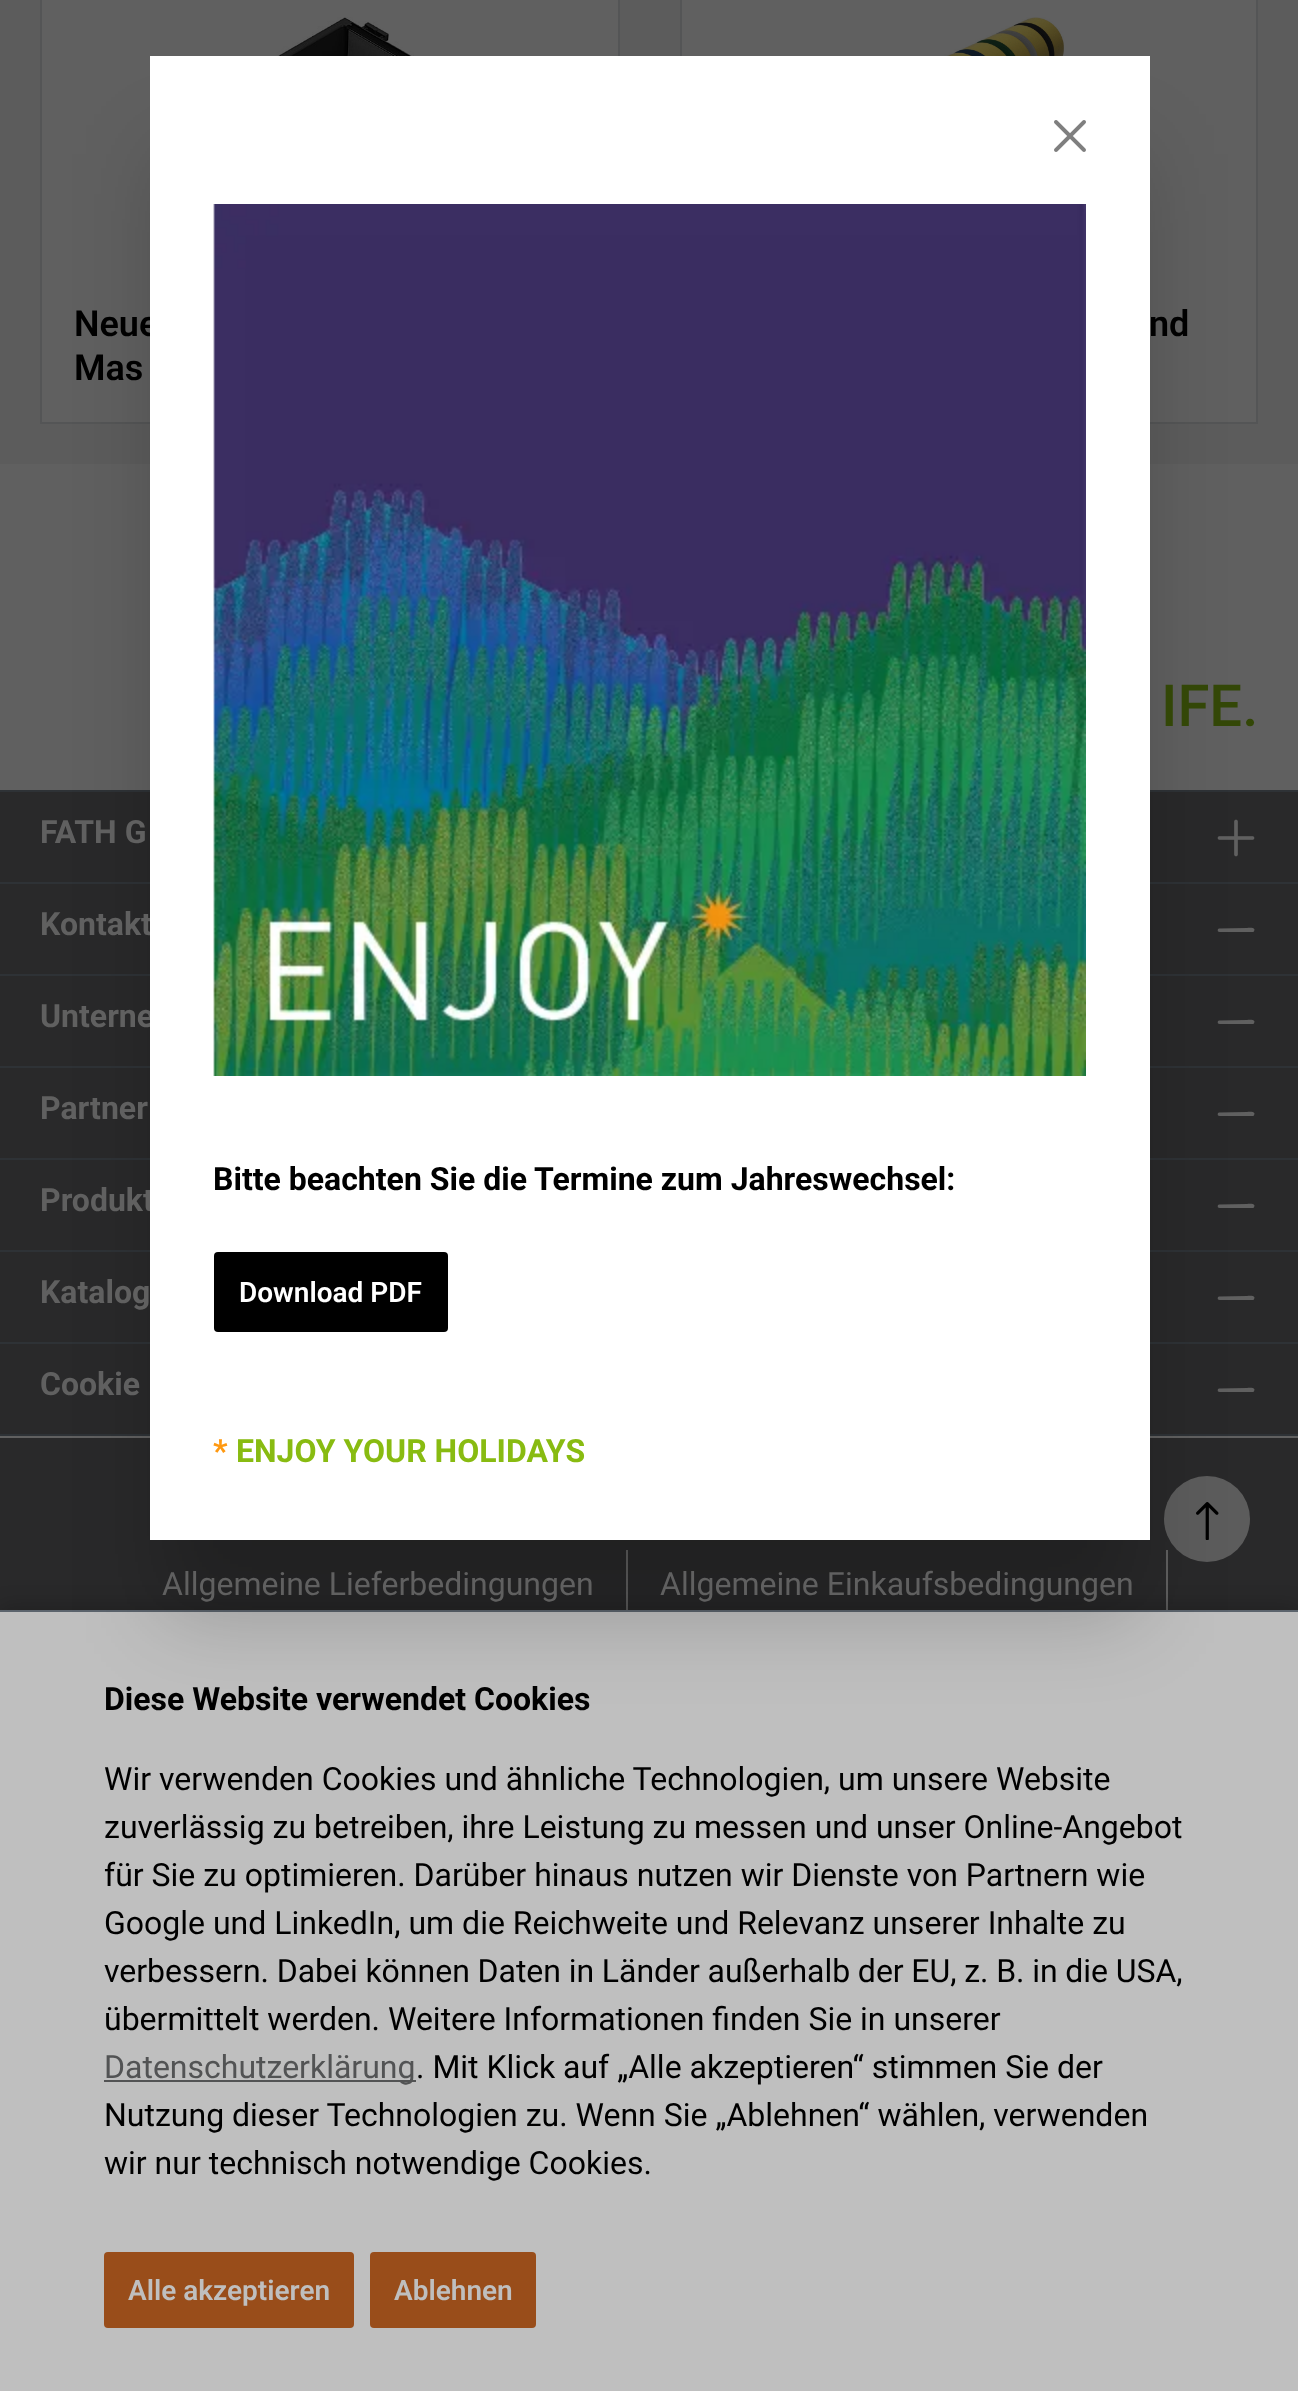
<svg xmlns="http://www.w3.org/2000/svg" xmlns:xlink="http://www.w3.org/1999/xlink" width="1298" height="2391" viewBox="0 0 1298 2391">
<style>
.cls-1{font:600 36px Roboto;fill:#000000}
.cls-2{font:500 58px Roboto;fill:#334707}
.cls-3{font:bold 32px Roboto;fill:#606060}
.cls-4{font:32px Roboto;fill:#606060}
.cls-5{font:bold 32px Roboto;fill:#000000}
.cls-6{font:600 28px Roboto;fill:#ffffff}
.cls-7{font:bold 32px Roboto;fill:#ff9911}
.cls-8{font:bold 32px Roboto;fill:#88bb11}
.cls-9{font:32px Roboto;fill:#000000}
.cls-10{font:32px Roboto;fill:#525354}
.cls-11{font:600 28px Roboto;fill:#bfbfbf}
</style>
<rect width="100%" height="100%" fill="#606060"/>
<rect fill="#5c5c5c" x="0" y="0" width="1298" height="464"/>
<rect fill="#606060" stroke="#545556" stroke-width="2" x="41" y="-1" width="578" height="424"/>
<image xlink:href="image0.png" x="196" y="17" width="263" height="39"/>
<rect fill="#606060" stroke="#545556" stroke-width="2" x="681" y="-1" width="576" height="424"/>
<image xlink:href="image1.png" x="825" y="17" width="290" height="39"/>
<rect fill="#29292a" x="0" y="792" width="1298" height="818"/>
<rect fill="#2e3236" x="0" y="790" width="1298" height="2"/>
<rect fill="#606060" x="0" y="1436" width="1298" height="2"/>
<rect fill="#2e3236" x="0" y="882" width="1298" height="2"/>
<image xlink:href="image2.png" x="1217" y="819" width="38" height="38"/>
<rect fill="#2e3236" x="0" y="974" width="1298" height="2"/>
<path fill="#606060" fill-rule="evenodd" d="M1219.5 932H1253L1254 931.5C1254 931 1254.5 930 1254.5 929.5C1253.5 927 1247.5 928 1247 928L1219 928.5C1217.5 929 1217.5 930.5 1218 931.5Z"/>
<rect fill="#2e3236" x="0" y="1066" width="1298" height="2"/>
<path fill="#606060" fill-rule="evenodd" d="M1219.5 1024H1253L1254 1023.5C1254 1023 1254.5 1022 1254.5 1021.5C1253.5 1019 1247.5 1020 1247 1020L1219 1020.5C1217.5 1021 1217.5 1022.5 1218 1023.5Z"/>
<rect fill="#2e3236" x="0" y="1158" width="1298" height="2"/>
<path fill="#606060" fill-rule="evenodd" d="M1219.5 1116H1253L1254 1115.5C1254 1115 1254.5 1114 1254.5 1113.5C1253.5 1111 1247.5 1112 1247 1112L1219 1112.5C1217.5 1113 1217.5 1114.5 1218 1115.5Z"/>
<rect fill="#2e3236" x="0" y="1250" width="1298" height="2"/>
<path fill="#606060" fill-rule="evenodd" d="M1219.5 1208H1253L1254 1207.5C1254 1207 1254.5 1206 1254.5 1205.5C1253.5 1203 1247.5 1204 1247 1204L1219 1204.5C1217.5 1205 1217.5 1206.5 1218 1207.5Z"/>
<rect fill="#2e3236" x="0" y="1342" width="1298" height="2"/>
<path fill="#606060" fill-rule="evenodd" d="M1219.5 1300H1253L1254 1299.5C1254 1299 1254.5 1298 1254.5 1297.5C1253.5 1295 1247.5 1296 1247 1296L1219 1296.5C1217.5 1297 1217.5 1298.5 1218 1299.5Z"/>
<rect fill="#2e3236" x="0" y="1434" width="1298" height="2"/>
<path fill="#606060" fill-rule="evenodd" d="M1219.5 1392H1253L1254 1391.5C1254 1391 1254.5 1390 1254.5 1389.5C1253.5 1387 1247.5 1388 1247 1388L1219 1388.5C1217.5 1389 1217.5 1390.5 1218 1391.5Z"/>
<rect fill="#606060" x="626" y="1550" width="2" height="68"/>
<rect fill="#606060" x="1166" y="1550" width="2" height="68"/>
<circle fill="#5c5c5c" cx="1207" cy="1519" r="43"/>
<image xlink:href="image5.png" x="1196" y="1502" width="23" height="38"/>
<rect fill="#000000" fill-opacity="0.2" filter="blur(10px)" x="0" y="1606" width="1298" height="782"/>
<rect fill="#bfbfbf" x="0" y="1612" width="1298" height="779"/>
<rect fill="#5b636c" x="0" y="1610" width="1298" height="2"/>
<rect fill="#000000" fill-opacity="0.2" filter="blur(43px)" x="162" y="154" width="976" height="1460"/>
<rect fill="#525354" x="104" y="2080" width="312" height="2"/>
<rect fill="#994d1a" x="104" y="2252" width="250" height="76" rx="4"/>
<rect fill="#994d1a" x="370" y="2252" width="166" height="76" rx="4"/>
<text class="cls-1"><tspan x="74" y="336">Neue</tspan><tspan x="74" y="380">Mas</tspan></text>
<text class="cls-1" x="1149" y="336">nd</text>
<text class="cls-2" x="1161" y="726">IFE.</text>
<text class="cls-3" x="40" y="843">FATH G</text>
<text class="cls-3" x="40" y="935">Kontakt</text>
<text class="cls-3" x="40" y="1027">Unterne</text>
<text class="cls-3" x="40" y="1119">Partner</text>
<text class="cls-3" x="40" y="1211">Produkt</text>
<text class="cls-3" x="40" y="1303">Katalog</text>
<text class="cls-3" x="40" y="1395">Cookie</text>
<text class="cls-4" x="162" y="1595">Allgemeine Lieferbedingungen</text>
<text class="cls-4" x="660" y="1595">Allgemeine Einkaufsbedingungen</text>
<rect fill="#ffffff" x="150" y="56" width="1000" height="1484"/>
<image xlink:href="image3.png" x="1054" y="120" width="32" height="32"/>
<image xlink:href="image4.png" x="213" y="204" width="873" height="872"/>
<text class="cls-5" x="213" y="1190">Bitte beachten Sie die Termine zum Jahreswechsel:</text>
<rect fill="#000000" x="214" y="1252" width="234" height="80" rx="4"/>
<text class="cls-6" x="239" y="1302">Download PDF</text>
<text class="cls-7" x="213" y="1462">*</text>
<text class="cls-8" x="236" y="1462">ENJOY YOUR HOLIDAYS</text>
<text class="cls-5" x="104" y="1710">Diese Website verwendet Cookies</text>
<text class="cls-9"><tspan x="104" y="1790">Wir verwenden Cookies und ähnliche Technologien, um unsere Website</tspan><tspan x="104" y="1838">zuverlässig zu betreiben, ihre Leistung zu messen und unser Online-Angebot</tspan><tspan x="104" y="1886">für Sie zu optimieren. Darüber hinaus nutzen wir Dienste von Partnern wie</tspan><tspan x="104" y="1934">Google und LinkedIn, um die Reichweite und Relevanz unserer Inhalte zu</tspan><tspan x="104" y="1982" word-spacing="-0.3">verbessern. Dabei können Daten in Länder außerhalb der EU, z. B. in die USA,</tspan><tspan x="104" y="2030">übermittelt werden. Weitere Informationen finden Sie in unserer</tspan></text>
<text class="cls-10" x="104" y="2078">Datenschutzerklärung</text>
<text class="cls-9" x="416" y="2078">. Mit Klick auf „Alle akzeptieren“ stimmen Sie der</text>
<text class="cls-9"><tspan x="104" y="2126">Nutzung dieser Technologien zu. Wenn Sie „Ablehnen“ wählen, verwenden</tspan><tspan x="104" y="2174">wir nur technisch notwendige Cookies.</tspan></text>
<text class="cls-11" x="128" y="2300">Alle akzeptieren</text>
<text class="cls-11" x="394" y="2300">Ablehnen</text>
</svg>
